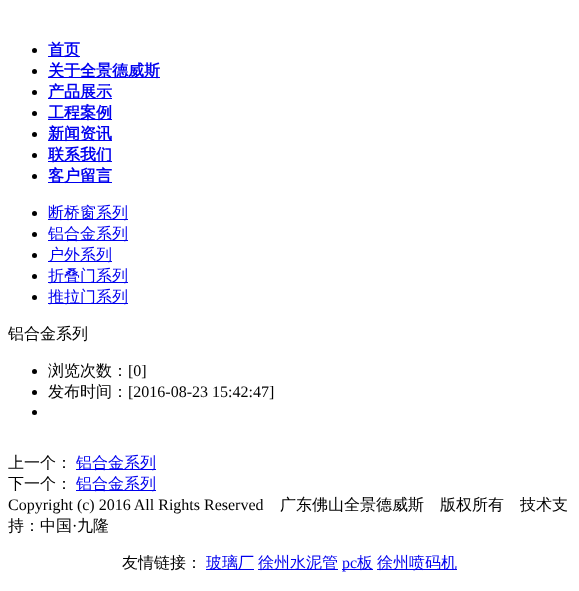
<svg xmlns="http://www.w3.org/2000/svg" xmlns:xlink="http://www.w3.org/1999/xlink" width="579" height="591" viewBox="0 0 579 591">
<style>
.cls-1{font:bold 16px WenQuanYi Zen Hei;fill:#0000ee}
.cls-2{font:500 16px WenQuanYi Zen Hei;fill:#0000ee}
.cls-3{font:500 16px WenQuanYi Zen Hei;fill:#000000}
.cls-4{font:16px Liberation Serif;fill:#000000}
.cls-5{font:16px Liberation Serif;fill:#0000ee}
</style>
<rect width="100%" height="100%" fill="#ffffff"/>
<circle fill="#000000" cx="34.5" cy="50.5" r="2.5"/>
<rect fill="#0000ee" x="48" y="56" width="32" height="1"/>
<circle fill="#000000" cx="34.5" cy="71.5" r="2.5"/>
<rect fill="#0000ee" x="48" y="77" width="112" height="1"/>
<circle fill="#000000" cx="34.5" cy="92.5" r="2.5"/>
<rect fill="#0000ee" x="48" y="98" width="64" height="1"/>
<circle fill="#000000" cx="34.5" cy="113.5" r="2.5"/>
<rect fill="#0000ee" x="48" y="119" width="64" height="1"/>
<circle fill="#000000" cx="34.5" cy="134.5" r="2.5"/>
<rect fill="#0000ee" x="48" y="140" width="64" height="1"/>
<circle fill="#000000" cx="34.5" cy="155.5" r="2.5"/>
<rect fill="#0000ee" x="48" y="161" width="64" height="1"/>
<circle fill="#000000" cx="34.5" cy="176.5" r="2.5"/>
<rect fill="#0000ee" x="48" y="182" width="64" height="1"/>
<circle fill="#000000" cx="34.5" cy="213.5" r="2.5"/>
<rect fill="#0000ee" x="48" y="219" width="80" height="1"/>
<circle fill="#000000" cx="34.5" cy="234.5" r="2.5"/>
<rect fill="#0000ee" x="48" y="240" width="80" height="1"/>
<circle fill="#000000" cx="34.5" cy="255.5" r="2.5"/>
<rect fill="#0000ee" x="48" y="261" width="64" height="1"/>
<circle fill="#000000" cx="34.5" cy="276.5" r="2.5"/>
<rect fill="#0000ee" x="48" y="282" width="80" height="1"/>
<circle fill="#000000" cx="34.5" cy="297.5" r="2.5"/>
<rect fill="#0000ee" x="48" y="303" width="80" height="1"/>
<circle fill="#000000" cx="34.5" cy="371.5" r="2.5"/>
<circle fill="#000000" cx="34.5" cy="392.5" r="2.5"/>
<circle fill="#000000" cx="34.5" cy="412.5" r="2.5"/>
<rect fill="#0000ee" x="76" y="469" width="80" height="1"/>
<rect fill="#0000ee" x="76" y="490" width="80" height="1"/>
<rect fill="#0000ee" x="206" y="569" width="48" height="1"/>
<rect fill="#0000ee" x="258" y="569" width="80" height="1"/>
<rect fill="#0000ee" x="342" y="569" width="31" height="1"/>
<rect fill="#0000ee" x="377" y="569" width="80" height="1"/>
<text class="cls-1"><tspan x="48" y="55">首页</tspan><tspan x="48" y="76">关于全景德威斯</tspan><tspan x="48" y="97">产品展示</tspan><tspan x="48" y="118">工程案例</tspan><tspan x="48" y="139">新闻资讯</tspan><tspan x="48" y="160">联系我们</tspan><tspan x="48" y="181">客户留言</tspan></text>
<text class="cls-2"><tspan x="48" y="218">断桥窗系列</tspan><tspan x="48" y="239">铝合金系列</tspan><tspan x="48" y="260">户外系列</tspan><tspan x="48" y="281">折叠门系列</tspan><tspan x="48" y="302">推拉门系列</tspan></text>
<text class="cls-3" x="8" y="339">铝合金系列</text>
<text class="cls-3" x="48" y="376">浏览次数：</text>
<text class="cls-4" x="128" y="376">[0]</text>
<text class="cls-3" x="48" y="397">发布时间：</text>
<text class="cls-4" x="128" y="397">[2016-08-23 15:42:47]</text>
<text class="cls-3" x="8" y="468">上一个：</text>
<text class="cls-2" x="76" y="468">铝合金系列</text>
<text class="cls-3" x="8" y="489">下一个：</text>
<text class="cls-2" x="76" y="489">铝合金系列</text>
<text class="cls-4" x="8" y="510">Copyright (c) 2016 All Rights Reserved</text>
<text class="cls-3" x="280" y="510">广东佛山全景德威斯　版权所有　技术支</text>
<text class="cls-3" x="8" y="531">持：中国</text>
<text class="cls-4" x="72" y="531">·</text>
<text class="cls-3" x="77" y="531">九隆</text>
<text class="cls-3" x="122" y="568">友情链接：</text>
<text class="cls-2" x="206" y="568">玻璃厂</text>
<text class="cls-2" x="258" y="568">徐州水泥管</text>
<text class="cls-5" x="342" y="568">pc</text>
<text class="cls-2" x="357" y="568">板</text>
<text class="cls-2" x="377" y="568">徐州喷码机</text>
</svg>
